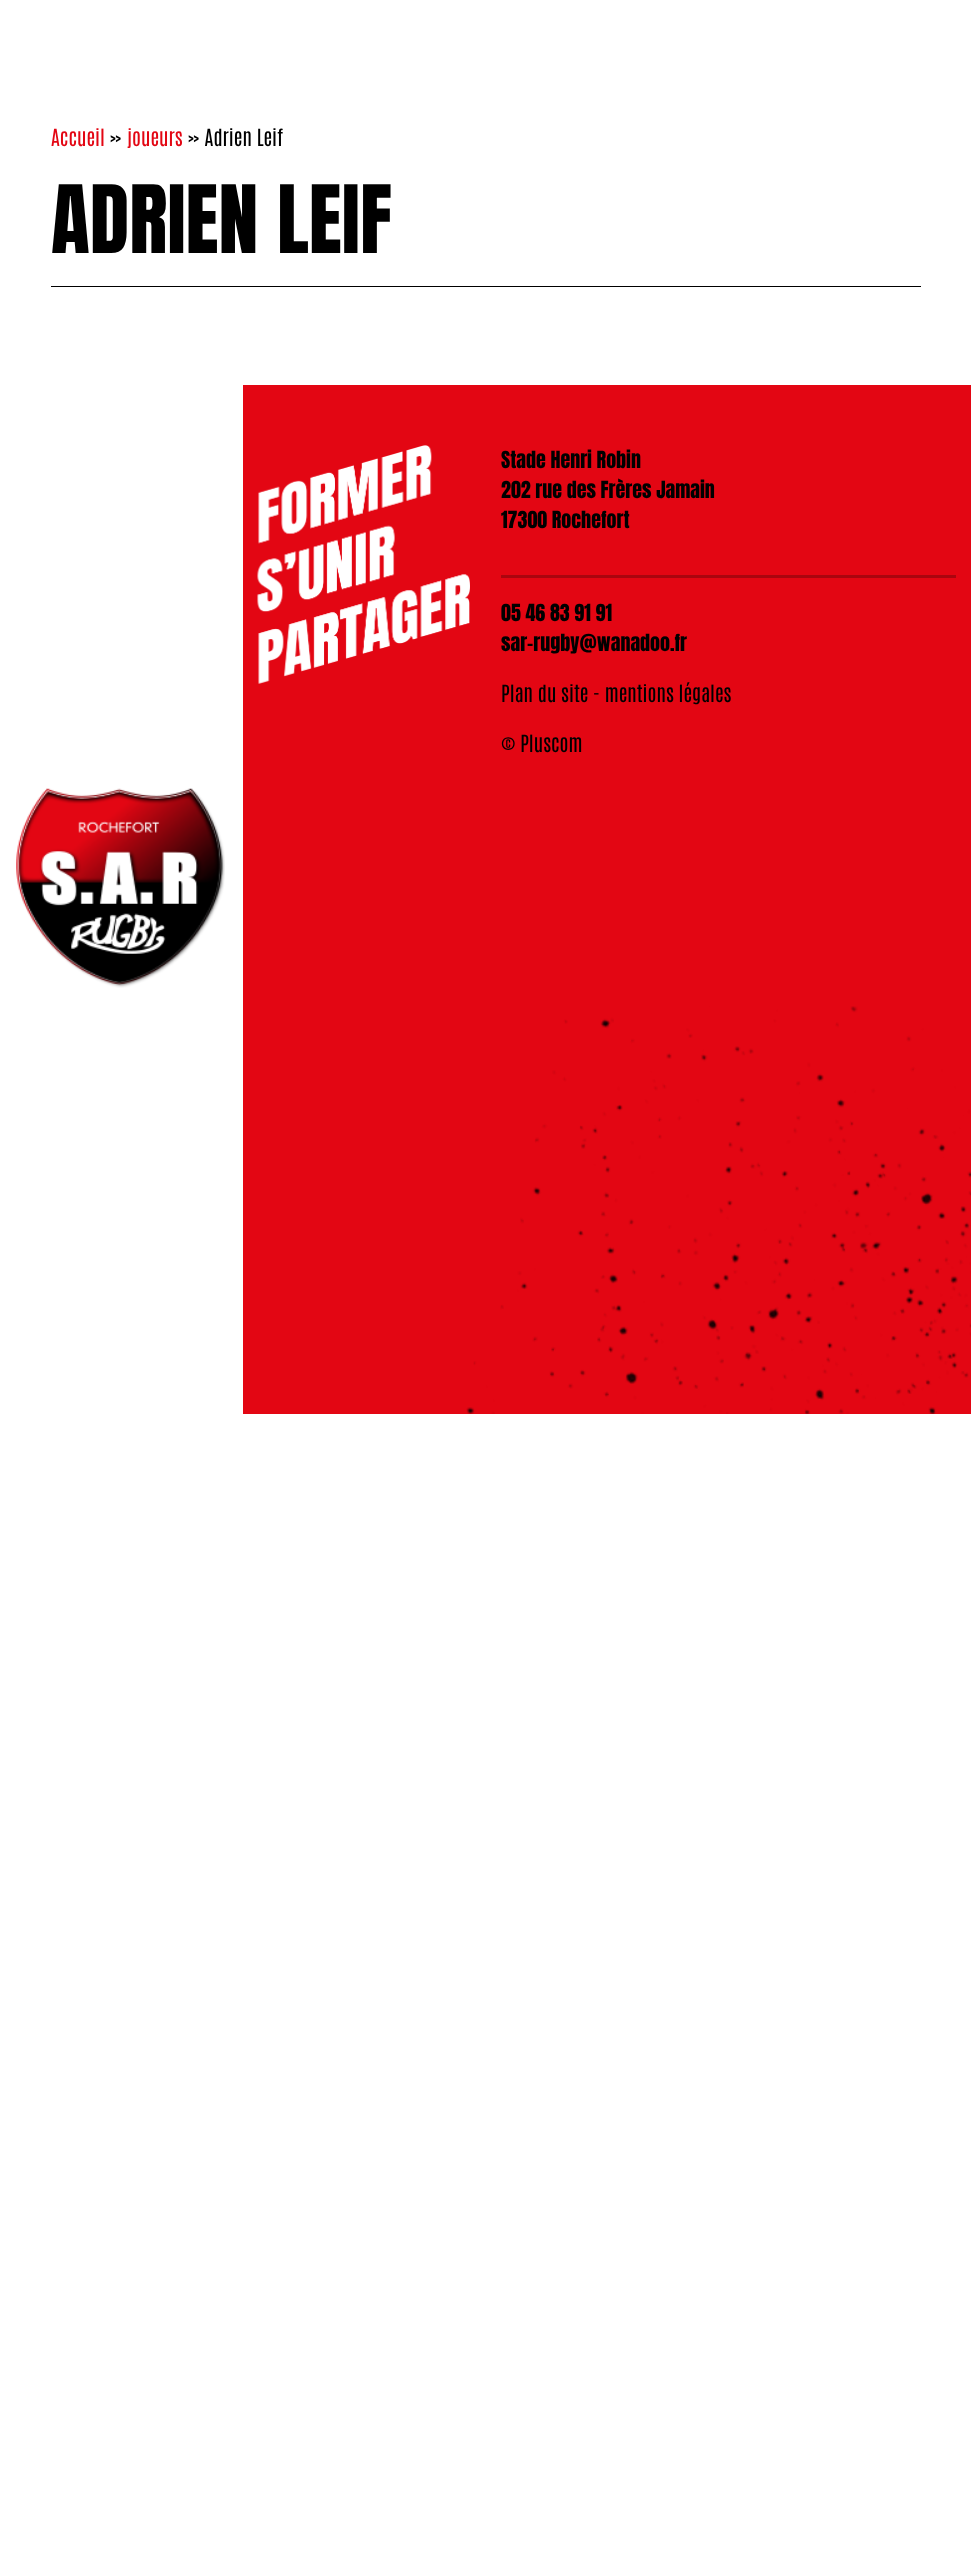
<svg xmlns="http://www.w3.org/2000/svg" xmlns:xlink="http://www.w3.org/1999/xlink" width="971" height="2571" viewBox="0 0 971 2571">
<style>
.cls-1{font:20px Antonio;fill:#e30613}
.cls-2{font:20px Antonio;fill:#000000}
.cls-3{font:80px Anton;fill:#000000}
.cls-4{font:20px Anton;fill:#000000}
</style>
<rect width="100%" height="100%" fill="#ffffff"/>
<rect fill="#000000" x="51" y="286" width="870" height="1"/>
<rect fill="#e30613" x="243" y="385" width="728" height="1029"/>
<image xlink:href="image0.png" x="466" y="1006" width="505" height="408"/>
<image xlink:href="image1.png" x="257" y="445" width="213" height="239"/>
<rect fill="#aa050e" x="501" y="575" width="455" height="3"/>
<image xlink:href="image2.png" x="16" y="788" width="209" height="200"/>
<text class="cls-1" x="51" y="146">Accueil</text>
<text class="cls-2" x="109" y="146">»</text>
<text class="cls-1" x="127" y="146">joueurs</text>
<text class="cls-2" x="187" y="146">» Adrien Leif</text>
<text class="cls-3" x="51" y="253">ADRIEN LEIF</text>
<text class="cls-4"><tspan x="501" y="468">Stade Henri Robin</tspan><tspan x="501" y="498">202 rue des Frères Jamain</tspan><tspan x="501" y="528">17300 Rochefort</tspan></text>
<text class="cls-4"><tspan x="501" y="621">05 46 83 91 91</tspan><tspan x="501" y="651">sar-rugby@wanadoo.fr</tspan></text>
<text class="cls-2" x="501" y="702">Plan du site - mentions légales</text>
<text class="cls-2" x="501" y="752">© Pluscom</text>
</svg>
